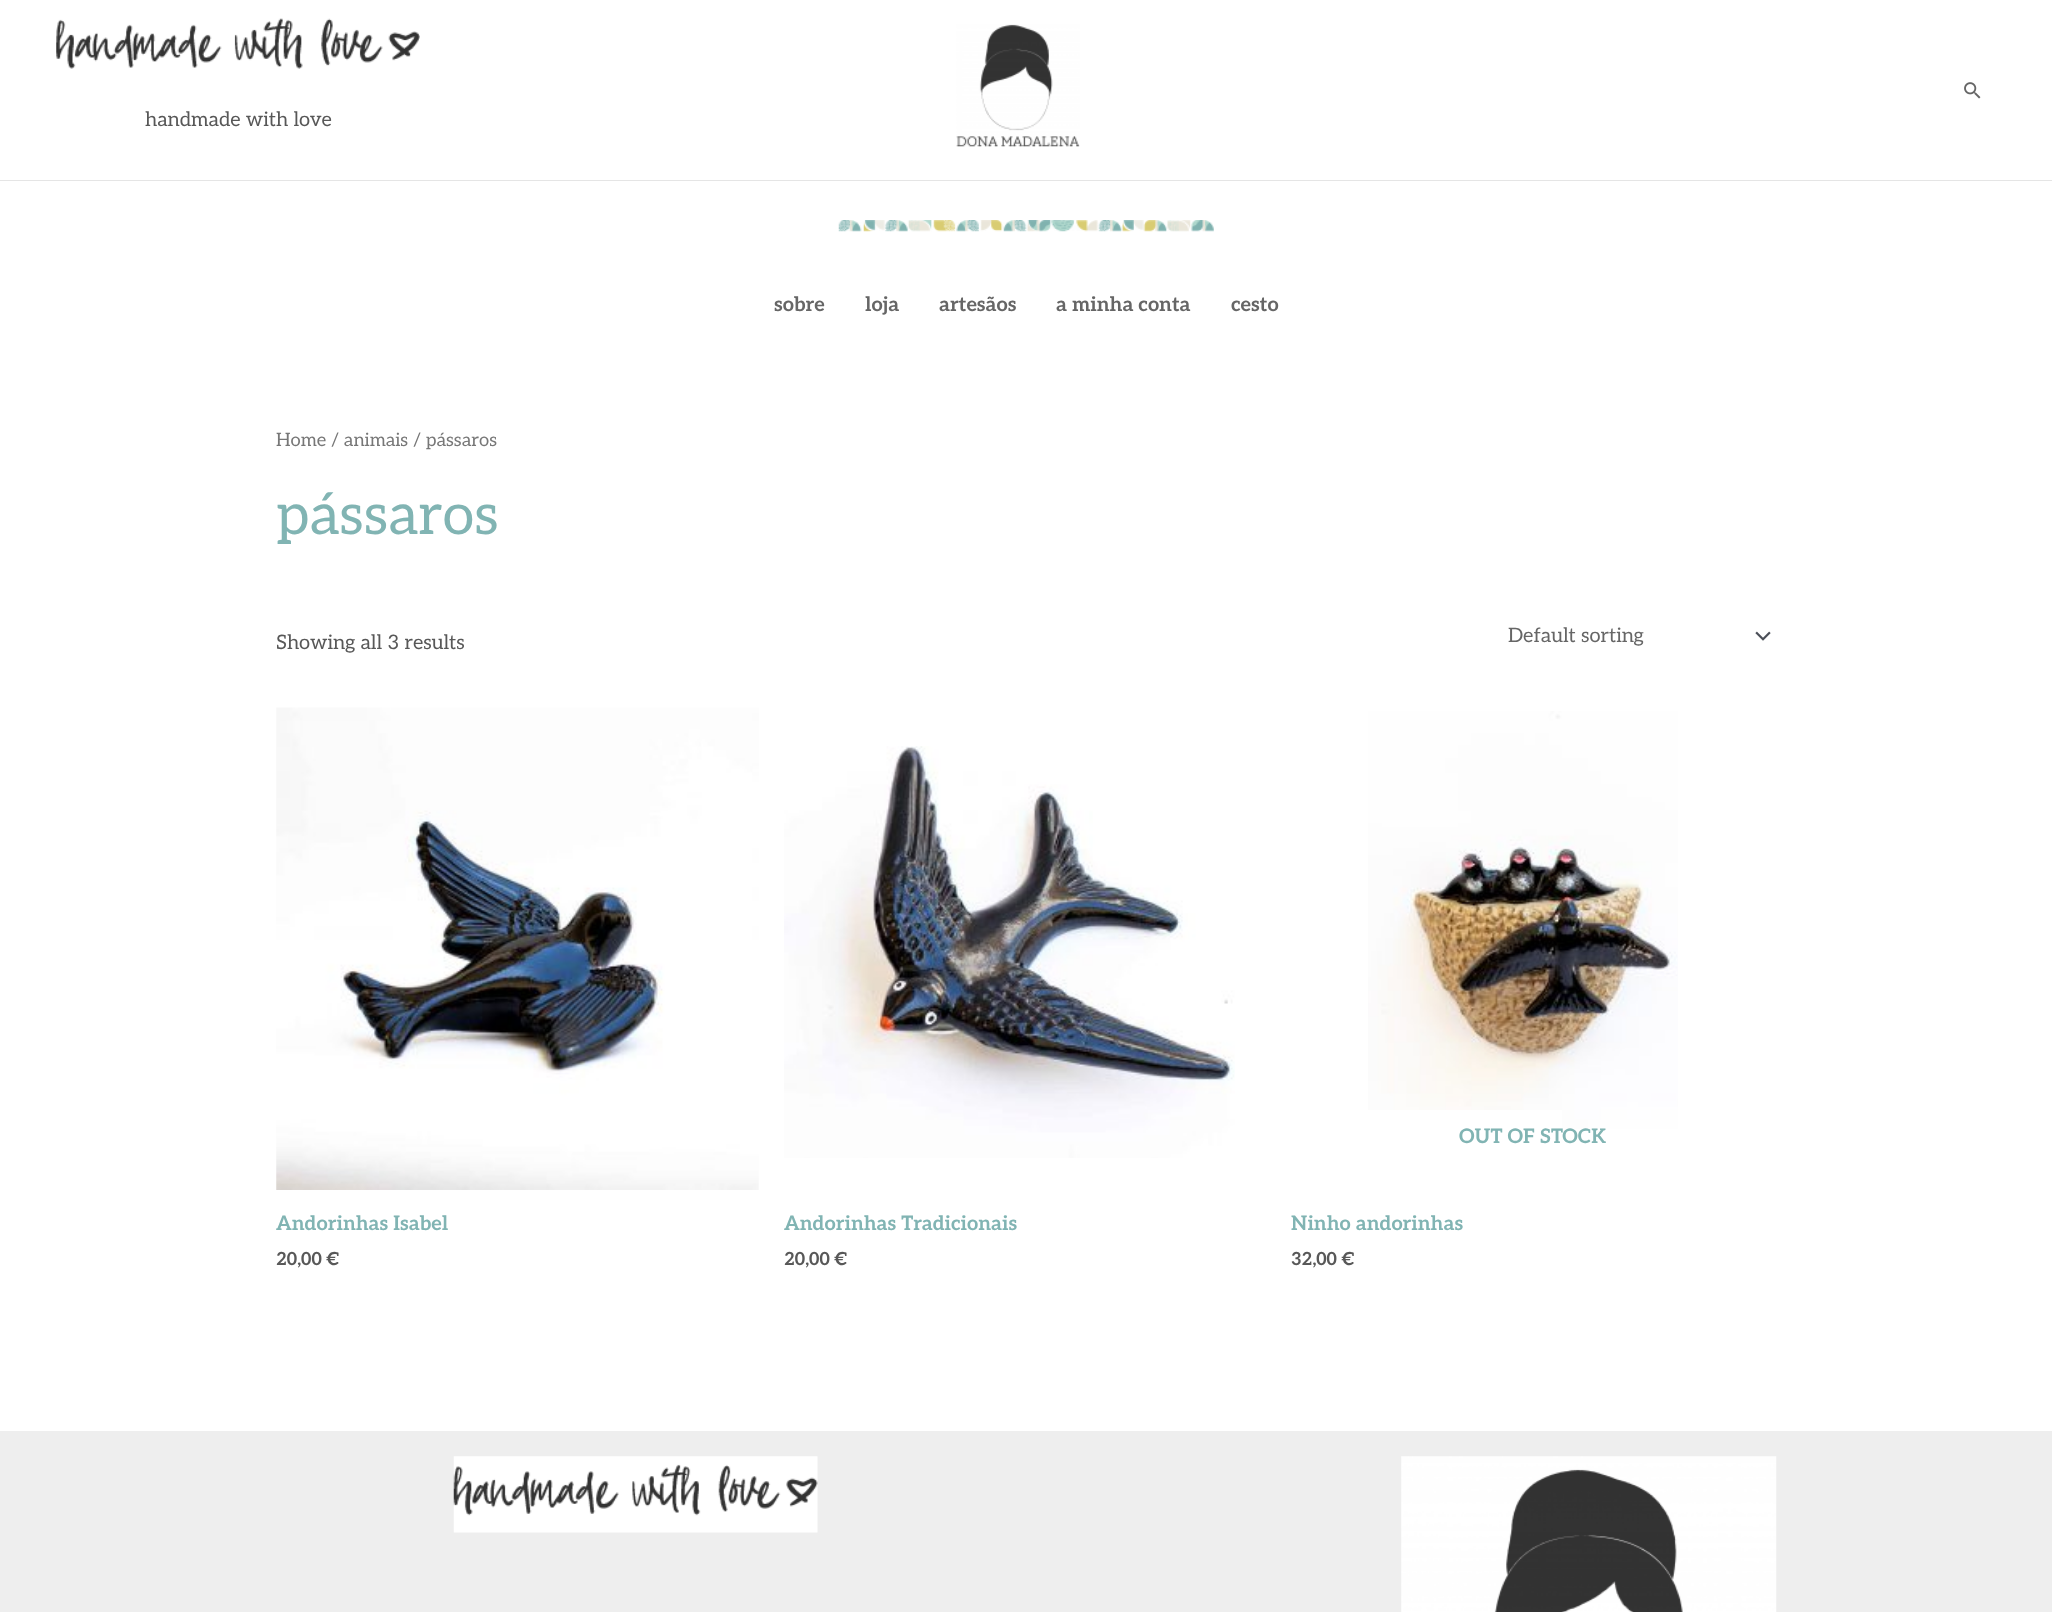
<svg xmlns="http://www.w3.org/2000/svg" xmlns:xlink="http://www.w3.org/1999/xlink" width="2052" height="1612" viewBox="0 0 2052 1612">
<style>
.cls-1{font:20px Aleo;fill:#585858}
.cls-2{font:bold 20px Aleo;fill:#666666}
.cls-3{font:18.4px Aleo;fill:#777777}
.cls-4{font:57.5px Aleo;fill:#81b4b3}
.cls-5{font:20px Aleo;fill:#666666}
.cls-6{font:bold 20px Aleo;fill:#81b4b3}
.cls-7{font:bold 18px Aleo;fill:#585858}
</style>
<rect width="100%" height="100%" fill="#ffffff"/>
<rect fill="#e5e5e5" x="0" y="180" width="2052" height="1"/>
<image xlink:href="image0.png" x="956" y="24" width="124" height="123"/>
<image xlink:href="image1.png" x="1964" y="82" width="17" height="17"/>
<image xlink:href="image2.png" x="56" y="18" width="364" height="51"/>
<image xlink:href="image3.png" x="838" y="220" width="376" height="12"/>
<image xlink:href="image4.png" x="1755" y="631" width="16" height="10"/>
<image xlink:href="image5.png" x="276" y="707" width="483" height="483"/>
<image xlink:href="image6.png" x="784" y="746" width="451" height="412"/>
<image xlink:href="image7.png" x="1368" y="711" width="310" height="418"/>
<rect fill="#ffffff" fill-opacity="0.88" x="1368" y="1110" width="194" height="19"/>
<rect fill="#eeeeee" x="0" y="1431" width="2052" height="181"/>
<image xlink:href="image8.png" x="453" y="1456" width="365" height="77"/>
<image xlink:href="image9.png" x="1401" y="1456" width="376" height="156"/>
<text class="cls-1" x="145" y="126">handmade with love</text>
<text class="cls-2" x="774" y="311">sobre</text>
<text class="cls-2" x="865" y="311">loja</text>
<text class="cls-2" x="939" y="311">artesãos</text>
<text class="cls-2" x="1056" y="311">a minha conta</text>
<text class="cls-2" x="1231" y="311">cesto</text>
<text class="cls-3" x="276" y="446">Home / animais / pássaros</text>
<text class="cls-4" x="276" y="534">pássaros</text>
<text class="cls-1" x="276" y="649">Showing all 3 results</text>
<text class="cls-5" x="1508" y="642">Default sorting</text>
<text class="cls-6" x="276" y="1230">Andorinhas Isabel</text>
<text class="cls-7" x="276" y="1265">20,00 €</text>
<text class="cls-6" x="784" y="1230">Andorinhas Tradicionais</text>
<text class="cls-7" x="784" y="1265">20,00 €</text>
<text class="cls-6" x="1459" y="1143">OUT OF STOCK</text>
<text class="cls-6" x="1291" y="1230">Ninho andorinhas</text>
<text class="cls-7" x="1291" y="1265">32,00 €</text>
</svg>
